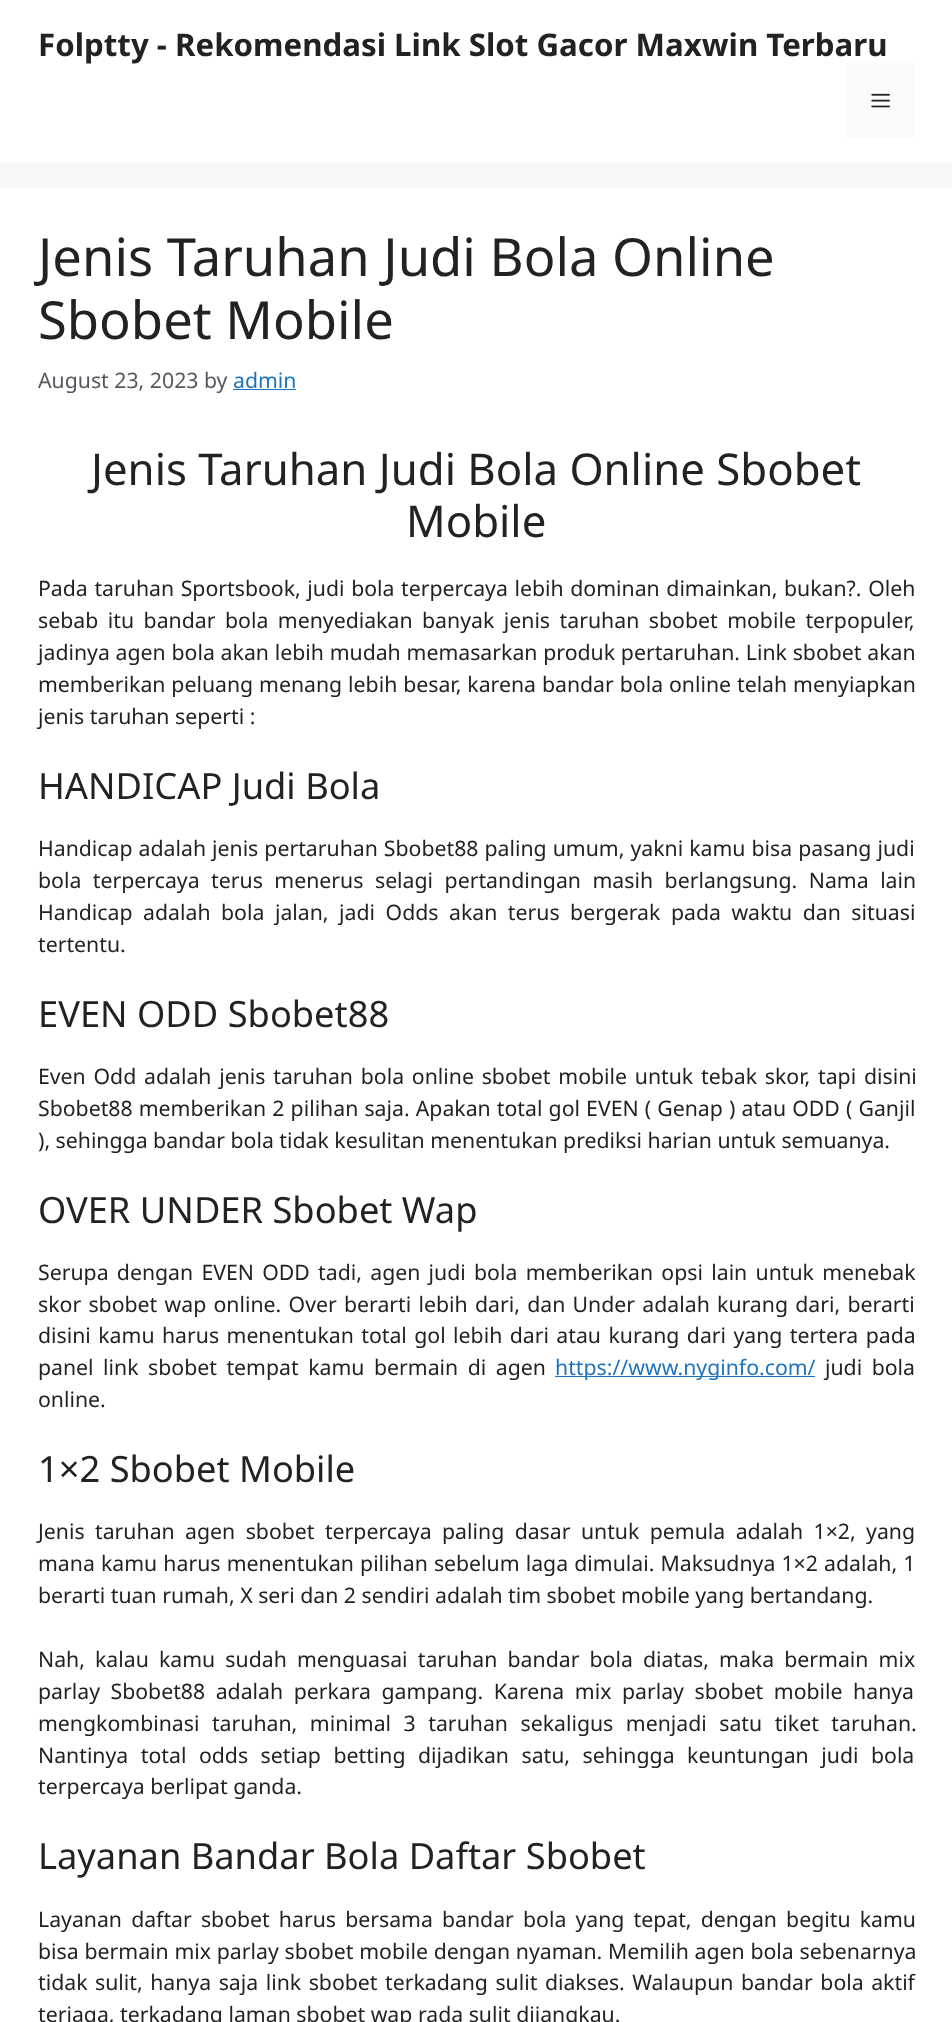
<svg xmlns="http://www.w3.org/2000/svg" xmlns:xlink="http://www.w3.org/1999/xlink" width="952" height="2022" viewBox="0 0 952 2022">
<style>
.cls-1{font:bold 31.25px Noto Sans;fill:#222222}
.cls-2{font:52.5px Noto Sans;fill:#222222}
.cls-3{font:21.25px Noto Sans;fill:#575760}
.cls-4{font:21.25px Noto Sans;fill:#1e73be}
.cls-5{font:43.75px Noto Sans;fill:#222222}
.cls-6{font:21.25px Noto Sans;fill:#222222}
.cls-7{font:36.25px Noto Sans;fill:#222222}
</style>
<rect width="100%" height="100%" fill="#f7f8f9"/>
<rect fill="#ffffff" x="0" y="0" width="952" height="163"/>
<rect fill="#ffffff" x="0" y="188" width="952" height="1834"/>
<rect fill="#1e73be" x="233" y="389" width="63" height="1"/>
<rect fill="#1e73be" x="555" y="1376" width="260" height="1"/>
<text class="cls-1" x="38" y="56">Folptty - Rekomendasi Link Slot Gacor Maxwin Terbaru</text>
<rect fill="#fafafa" x="846" y="63" width="69" height="75"/>
<image xlink:href="image0.png" x="871" y="93" width="19" height="15"/>
<text class="cls-2"><tspan x="38" y="276">Jenis Taruhan Judi Bola Online</tspan><tspan x="38" y="339">Sbobet Mobile</tspan></text>
<text class="cls-3" x="38" y="388">August 23, 2023 by</text>
<text class="cls-4" x="233" y="388">admin</text>
<text class="cls-5" x="91" y="485">Jenis Taruhan Judi Bola Online Sbobet</text>
<text class="cls-5" x="406" y="537">Mobile</text>
<text class="cls-6"><tspan x="38" y="596" word-spacing="1.1">Pada taruhan Sportsbook, judi bola terpercaya lebih dominan dimainkan, bukan?. Oleh</tspan><tspan x="38" y="628" word-spacing="4">sebab itu bandar bola menyediakan banyak jenis taruhan sbobet mobile terpopuler,</tspan><tspan x="38" y="660" word-spacing="0.25">jadinya agen bola akan lebih mudah memasarkan produk pertaruhan. Link sbobet akan</tspan><tspan x="38" y="692" word-spacing="0.4">memberikan peluang menang lebih besar, karena bandar bola online telah menyiapkan</tspan><tspan x="38" y="724">jenis taruhan seperti :</tspan></text>
<text class="cls-7" x="38" y="799">HANDICAP Judi Bola</text>
<text class="cls-6"><tspan x="38" y="856" word-spacing="0.5">Handicap adalah jenis pertaruhan Sbobet88 paling umum, yakni kamu bisa pasang judi</tspan><tspan x="38" y="888" word-spacing="6">bola terpercaya terus menerus selagi pertandingan masih berlangsung. Nama lain</tspan><tspan x="38" y="920" word-spacing="5">Handicap adalah bola jalan, jadi Odds akan terus bergerak pada waktu dan situasi</tspan><tspan x="38" y="952">tertentu.</tspan></text>
<text class="cls-7" x="38" y="1027">EVEN ODD Sbobet88</text>
<text class="cls-6"><tspan x="38" y="1084" word-spacing="2.25">Even Odd adalah jenis taruhan bola online sbobet mobile untuk tebak skor, tapi disini</tspan><tspan x="38" y="1116" word-spacing="0.6">Sbobet88 memberikan 2 pilihan saja. Apakan total gol EVEN ( Genap ) atau ODD ( Ganjil</tspan><tspan x="38" y="1148">), sehingga bandar bola tidak kesulitan menentukan prediksi harian untuk semuanya.</tspan></text>
<text class="cls-7" x="38" y="1223">OVER UNDER Sbobet Wap</text>
<text class="cls-6"><tspan x="38" y="1280" word-spacing="2.75">Serupa dengan EVEN ODD tadi, agen judi bola memberikan opsi lain untuk menebak</tspan><tspan x="38" y="1312" word-spacing="1.75">skor sbobet wap online. Over berarti lebih dari, dan Under adalah kurang dari, berarti</tspan><tspan x="38" y="1343" word-spacing="1.9">disini kamu harus menentukan total gol lebih dari atau kurang dari yang tertera pada</tspan><tspan x="38" y="1375" word-spacing="4">panel link sbobet tempat kamu bermain di agen</tspan></text>
<text class="cls-4" x="555" y="1375">https://www.nyginfo.com/</text>
<text class="cls-6" x="825" y="1375" word-spacing="4">judi bola</text>
<text class="cls-6" x="38" y="1407">online.</text>
<text class="cls-7" x="38" y="1482">1×2 Sbobet Mobile</text>
<text class="cls-6"><tspan x="38" y="1539" word-spacing="4.9">Jenis taruhan agen sbobet terpercaya paling dasar untuk pemula adalah 1×2, yang</tspan><tspan x="38" y="1571" word-spacing="0.6">mana kamu harus menentukan pilihan sebelum laga dimulai. Maksudnya 1×2 adalah, 1</tspan><tspan x="38" y="1603">berarti tuan rumah, X seri dan 2 sendiri adalah tim sbobet mobile yang bertandang.</tspan></text>
<text class="cls-6"><tspan x="38" y="1667" word-spacing="4.6">Nah, kalau kamu sudah menguasai taruhan bandar bola diatas, maka bermain mix</tspan><tspan x="38" y="1699" word-spacing="5">parlay Sbobet88 adalah perkara gampang. Karena mix parlay sbobet mobile hanya</tspan><tspan x="38" y="1731" word-spacing="7">mengkombinasi taruhan, minimal 3 taruhan sekaligus menjadi satu tiket taruhan.</tspan><tspan x="38" y="1763" word-spacing="7">Nantinya total odds setiap betting dijadikan satu, sehingga keuntungan judi bola</tspan><tspan x="38" y="1794">terpercaya berlipat ganda.</tspan></text>
<text class="cls-7" x="38" y="1869">Layanan Bandar Bola Daftar Sbobet</text>
<text class="cls-6"><tspan x="38" y="1927" word-spacing="3.6">Layanan daftar sbobet harus bersama bandar bola yang tepat, dengan begitu kamu</tspan><tspan x="38" y="1959" word-spacing="0.25">bisa bermain mix parlay sbobet mobile dengan nyaman. Memilih agen bola sebenarnya</tspan><tspan x="38" y="1990" word-spacing="2">tidak sulit, hanya saja link sbobet terkadang sulit diakses. Walaupun bandar bola aktif</tspan><tspan x="38" y="2022">terjaga, terkadang laman sbobet wap rada sulit dijangkau.</tspan></text>
</svg>
